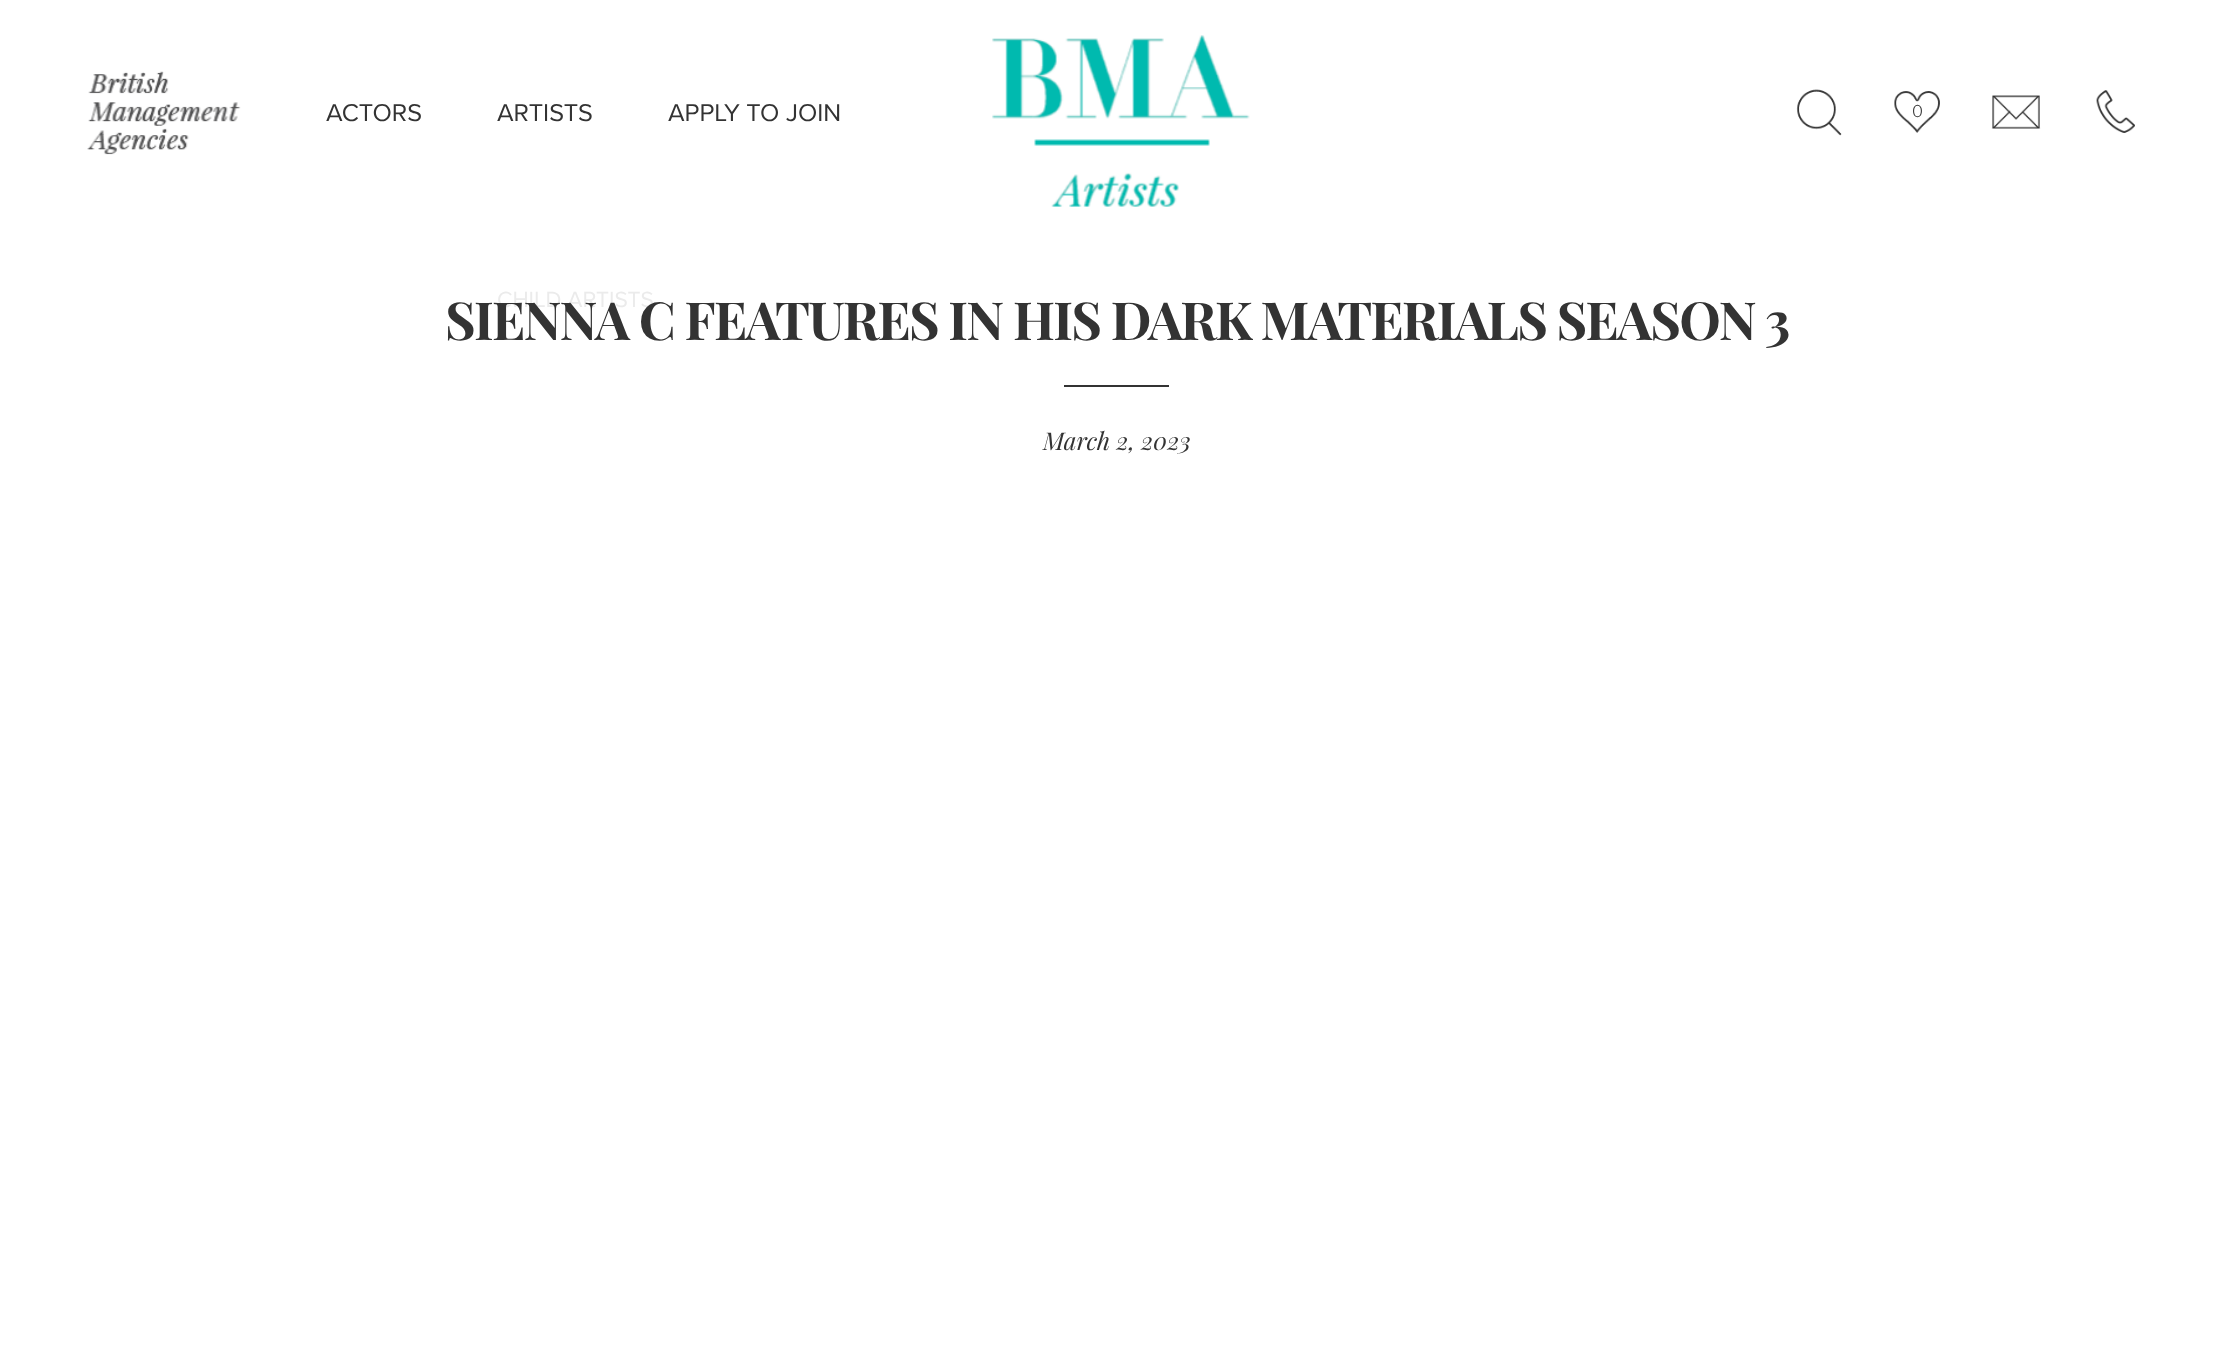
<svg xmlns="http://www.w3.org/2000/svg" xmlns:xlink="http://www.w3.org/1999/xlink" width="2234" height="1371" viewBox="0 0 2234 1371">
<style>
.cls-1{font:25.25px Proxima Nova;fill:#333333}
.cls-2{font:22.75px Proxima Nova;fill:#ebebeb}
.cls-3{font:300 18px Proxima Nova;fill:#333333}
.cls-4{font:bold 52.5px Playfair Display;letter-spacing:-1.75px;fill:#333333}
.cls-5{font:italic 24.5px Playfair Display;fill:#333333}
</style>
<rect width="100%" height="100%" fill="#ffffff"/>
<image xlink:href="image0.png" x="87" y="71" width="154" height="84"/>
<image xlink:href="image1.png" x="992" y="35" width="258" height="172"/>
<image xlink:href="image2.png" x="1796" y="89" width="46" height="47"/>
<image xlink:href="image3.png" x="1894" y="91" width="46" height="42"/>
<image xlink:href="image4.png" x="1991" y="95" width="50" height="34"/>
<image xlink:href="image5.png" x="2096" y="90" width="39" height="43"/>
<rect fill="#333333" x="1064" y="385" width="105" height="2"/>
<text class="cls-1" x="326" y="121">ACTORS</text>
<text class="cls-1" x="497" y="121">ARTISTS</text>
<text class="cls-2" x="497" y="307">CHILD ARTISTS</text>
<text class="cls-1" x="668" y="121">APPLY TO JOIN</text>
<text class="cls-3" x="1912" y="117">0</text>
<text class="cls-4" x="445" y="340">SIENNA C FEATURES IN HIS DARK MATERIALS SEASON 3</text>
<text class="cls-5" x="1043" y="450">March 2, 2023</text>
</svg>
